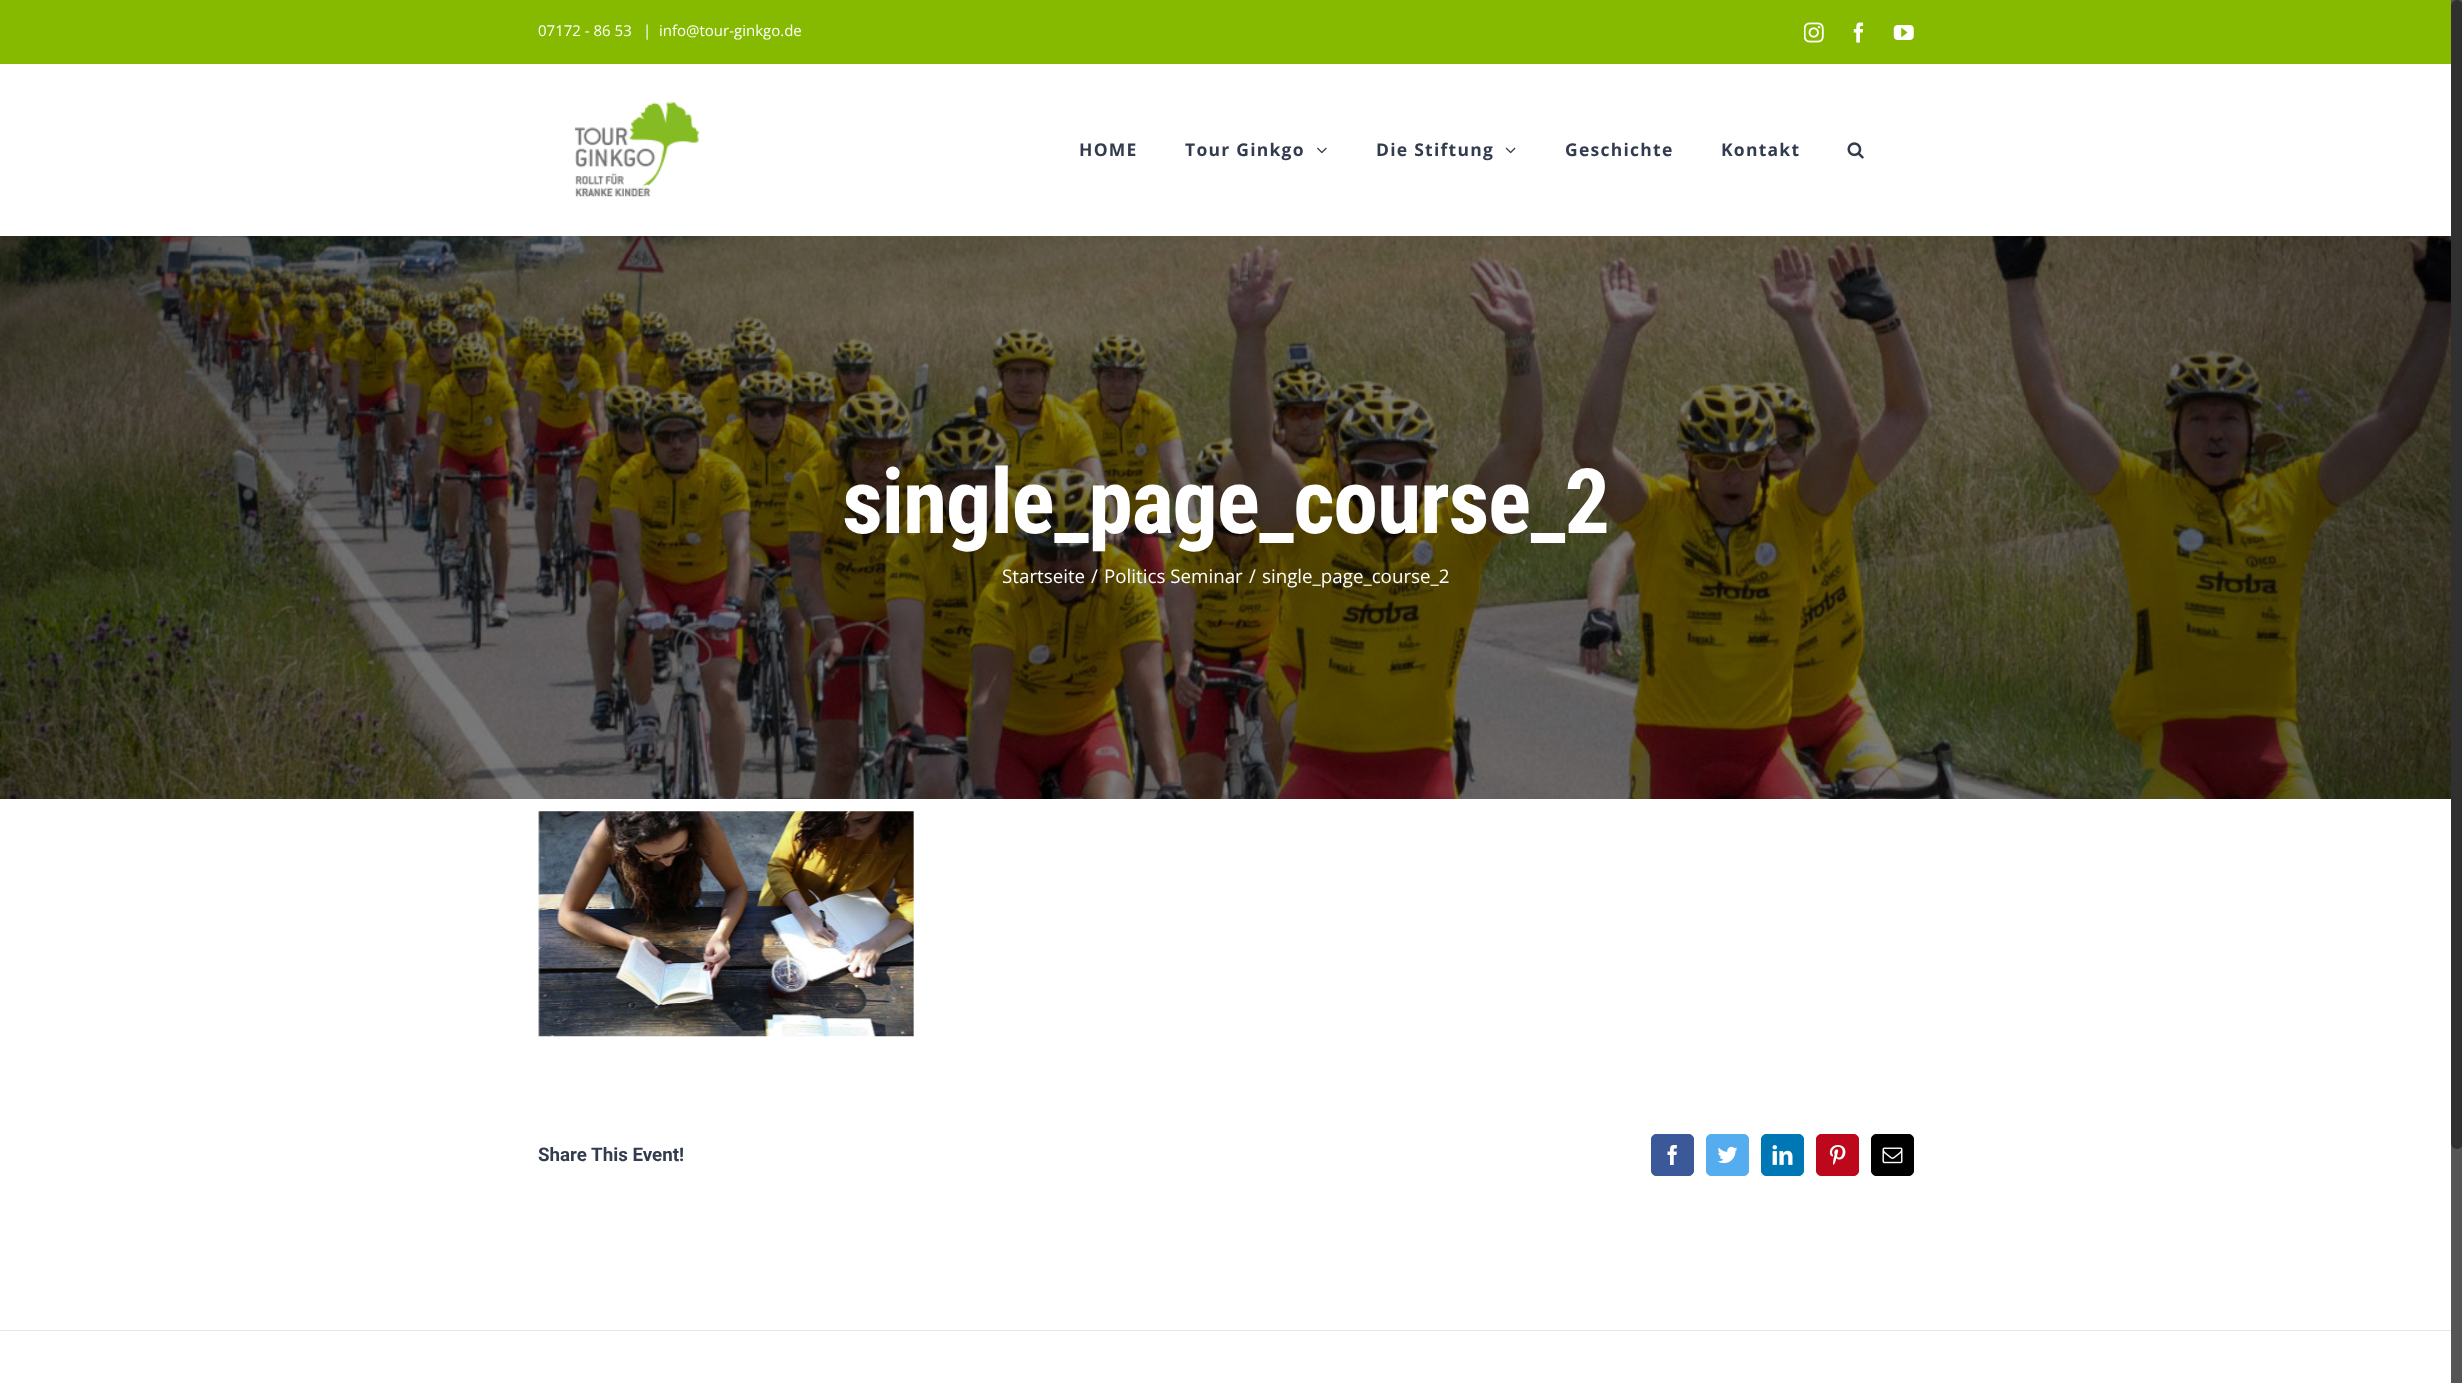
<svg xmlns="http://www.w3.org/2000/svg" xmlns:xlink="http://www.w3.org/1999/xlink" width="2462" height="1383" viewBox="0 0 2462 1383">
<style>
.cls-1{font:15px Open Sans;fill:#ffffff}
.cls-2{font:bold 17.5px Open Sans;letter-spacing:1.25px;fill:#333c4e}
.cls-3{font:bold 90px Roboto Condensed;letter-spacing:-1.25px;fill:#ffffff}
.cls-4{font:18.75px Open Sans;fill:#ffffff}
.cls-5{font:bold 18.75px Roboto;fill:#333c4e}
</style>
<rect width="100%" height="100%" fill="#ffffff"/>
<rect fill="#85ba00" x="0" y="0" width="2451" height="64"/>
<image xlink:href="image0.png" x="1804" y="22" width="20" height="21"/>
<image xlink:href="image1.png" x="1853" y="22" width="11" height="21"/>
<image xlink:href="image2.png" x="1893" y="25" width="21" height="15"/>
<image xlink:href="image3.png" x="574" y="102" width="125" height="95"/>
<image xlink:href="image4.png" x="1317" y="147" width="10" height="7"/>
<image xlink:href="image5.png" x="1505" y="147" width="11" height="7"/>
<image xlink:href="image6.png" x="1847" y="142" width="17" height="17"/>
<image xlink:href="image7.png" x="0" y="236" width="2451" height="563"/>
<image xlink:href="image8.png" x="538" y="811" width="376" height="226"/>
<rect fill="#3b5998" stroke="#3b5998" x="1651.5" y="1134.5" width="42" height="41" rx="4.5"/>
<image xlink:href="image9.png" x="1667" y="1145" width="10" height="20"/>
<rect fill="#55acee" stroke="#55acee" x="1706.5" y="1134.5" width="42" height="41" rx="4.5"/>
<image xlink:href="image10.png" x="1717" y="1146" width="21" height="18"/>
<rect fill="#0077b5" stroke="#0077b5" x="1761.5" y="1134.5" width="42" height="41" rx="4.5"/>
<image xlink:href="image11.png" x="1772" y="1145" width="21" height="20"/>
<rect fill="#bd081c" stroke="#bd081c" x="1816.5" y="1134.5" width="42" height="41" rx="4.5"/>
<image xlink:href="image12.png" x="1829" y="1145" width="17" height="20"/>
<rect fill="#000000" stroke="#000000" x="1871.5" y="1134.5" width="42" height="41" rx="4.5"/>
<image xlink:href="image13.png" x="1882" y="1147" width="21" height="17"/>
<rect fill="#e7e4e2" x="0" y="1330" width="2451" height="1"/>
<rect fill="#555555" x="2451" y="0" width="11" height="1383"/>
<rect fill="#303030" x="2451" y="0" width="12" height="1149" rx="6"/>
<text class="cls-1" x="538" y="36">07172 - 86 53</text>
<text class="cls-1" x="643" y="36">|</text>
<text class="cls-1" x="659" y="36">info@tour-ginkgo.de</text>
<text class="cls-2" x="1079" y="156">HOME</text>
<text class="cls-2" x="1185" y="156">Tour Ginkgo</text>
<text class="cls-2" x="1376" y="156">Die Stiftung</text>
<text class="cls-2" x="1565" y="156">Geschichte</text>
<text class="cls-2" x="1721" y="156">Kontakt</text>
<text class="cls-3" x="842" y="533">single_page_course_2</text>
<text class="cls-4" x="1002" y="583">Startseite</text>
<text class="cls-4" x="1091" y="583">/</text>
<text class="cls-4" x="1104" y="583">Politics Seminar</text>
<text class="cls-4" x="1249" y="583">/</text>
<text class="cls-4" x="1262" y="583">single_page_course_2</text>
<text class="cls-5" x="538" y="1161">Share This Event!</text>
</svg>
